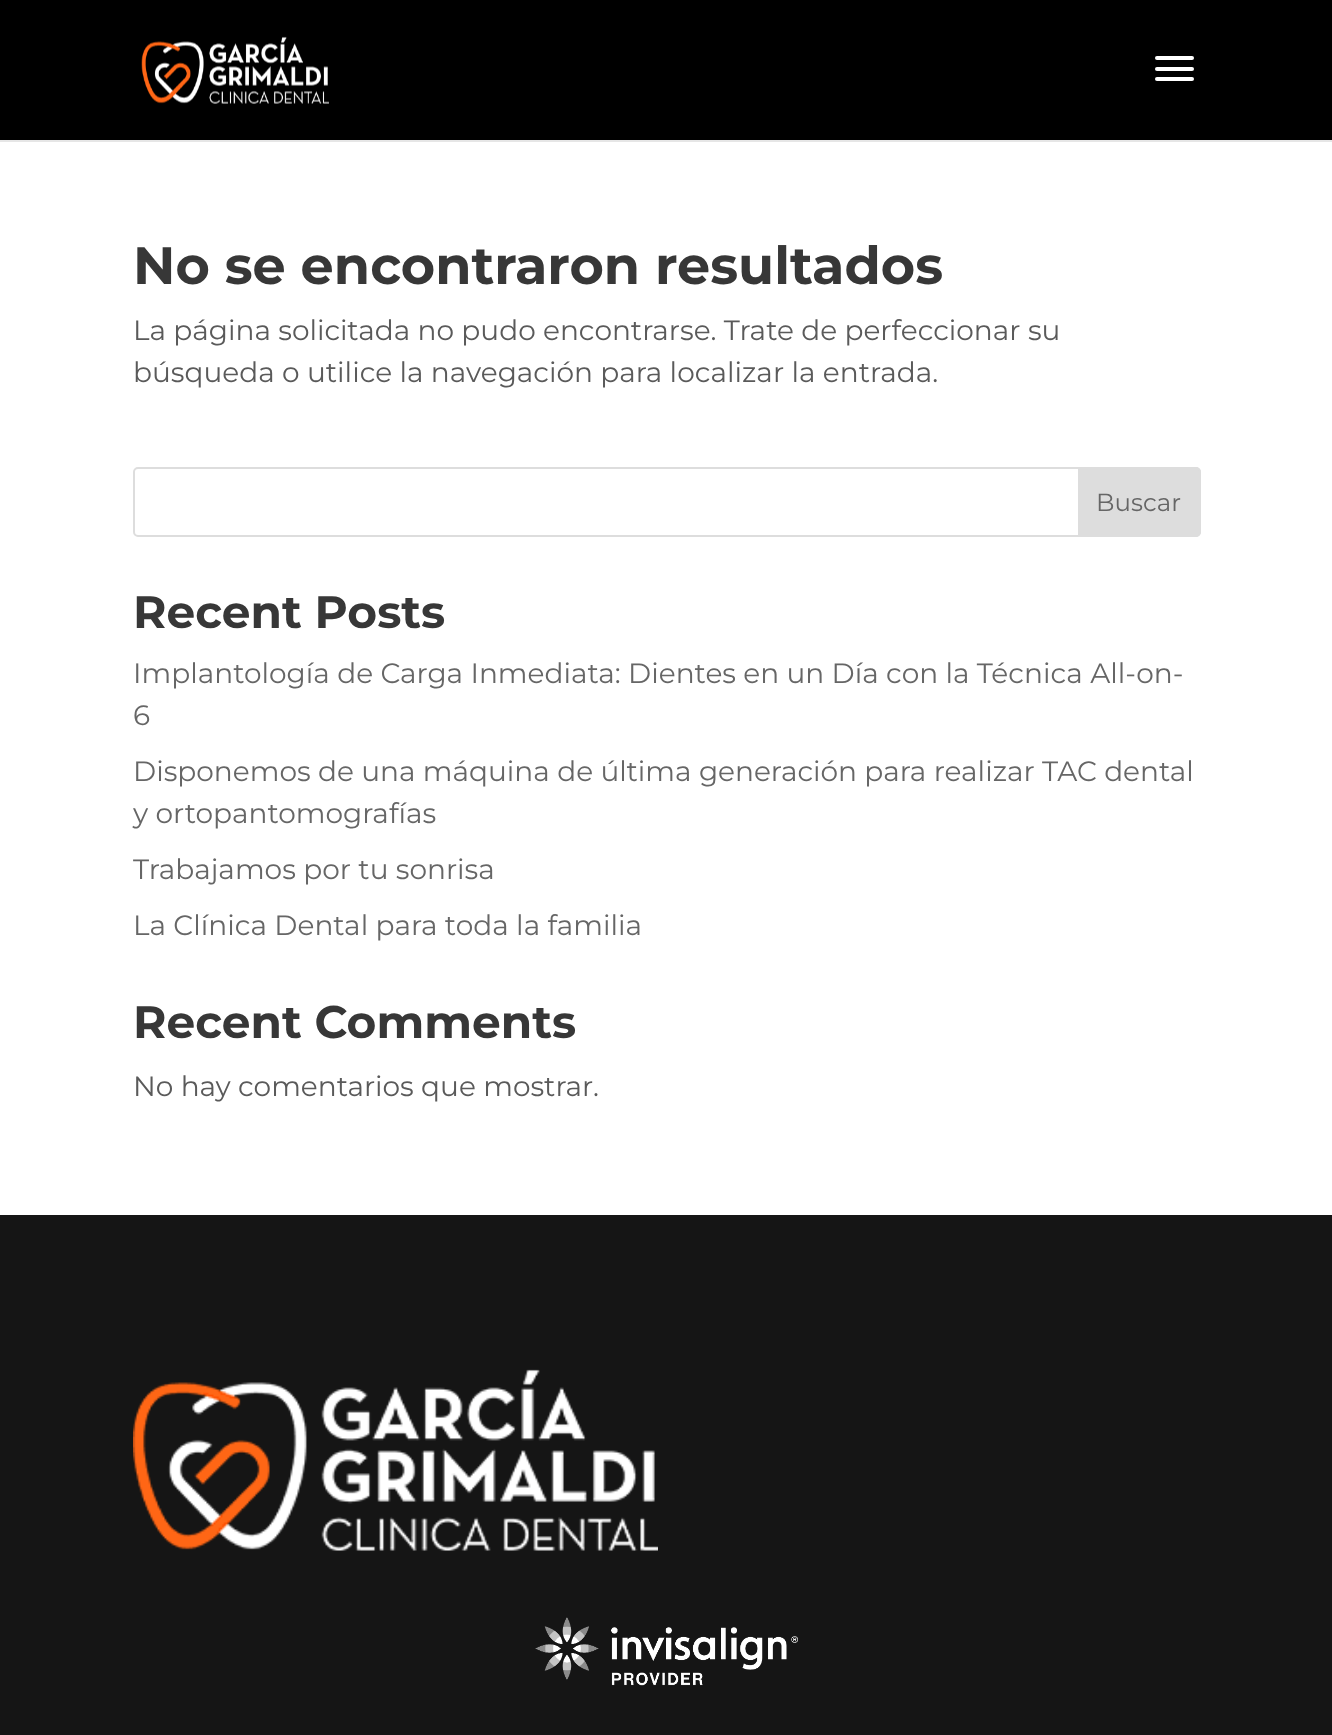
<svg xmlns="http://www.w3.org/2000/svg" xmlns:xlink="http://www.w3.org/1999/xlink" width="1332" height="1735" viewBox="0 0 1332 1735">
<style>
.cls-1{font:100 52.5px Montserrat;fill:#373737}
.cls-2{font:100 28px 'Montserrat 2';fill:#5a5a5a}
.cls-3{font:100 24.5px 'Montserrat 2';fill:#666666}
.cls-4{font:100 45.5px Montserrat;fill:#373737}
.cls-5{font:100 28px 'Montserrat 2';fill:#666666}
</style>
<rect width="100%" height="100%" fill="#ffffff"/>
<path fill="#e6e6e6" d="M0 140V142H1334V2V140Z"/>
<rect fill="#000000" x="0" y="0" width="1332" height="140"/>
<image xlink:href="image0.png" x="141" y="36" width="188" height="68"/>
<rect fill="#ffffff" x="1155" y="56" width="39" height="4" rx="2"/>
<rect fill="#ffffff" x="1155" y="67" width="39" height="4" rx="2"/>
<rect fill="#ffffff" x="1155" y="77" width="39" height="4" rx="2"/>
<rect fill="none" stroke="#dddddd" stroke-width="2" x="134" y="468" width="1066" height="68" rx="4"/>
<path fill="#dddddd" stroke="#dddddd" stroke-width="2" d="M1079 468H1196C1198 468 1200 470 1200 472V532C1200 534 1198 536 1196 536H1079Z"/>
<rect fill="#151515" x="0" y="1215" width="1332" height="520"/>
<image xlink:href="image1.png" x="133" y="1369" width="525" height="182"/>
<image xlink:href="image2.png" x="535" y="1617" width="263" height="69"/>
<text class="cls-1" x="133" y="284">No se encontraron resultados</text>
<text class="cls-2"><tspan x="133" y="340">La página solicitada no pudo encontrarse. Trate de perfeccionar su</tspan><tspan x="133" y="382">búsqueda o utilice la navegación para localizar la entrada.</tspan></text>
<text class="cls-3" x="1096" y="511">Buscar</text>
<text class="cls-4" x="133" y="628">Recent Posts</text>
<text class="cls-5"><tspan x="133" y="683">Implantología de Carga Inmediata: Dientes en un Día con la Técnica All-on-</tspan><tspan x="133" y="725">6</tspan></text>
<text class="cls-5"><tspan x="133" y="781">Disponemos de una máquina de última generación para realizar TAC dental</tspan><tspan x="133" y="823">y ortopantomografías</tspan></text>
<text class="cls-5" x="133" y="879">Trabajamos por tu sonrisa</text>
<text class="cls-5" x="133" y="935">La Clínica Dental para toda la familia</text>
<text class="cls-4" x="133" y="1038">Recent Comments</text>
<text class="cls-2" x="133" y="1096">No hay comentarios que mostrar.</text>
</svg>
